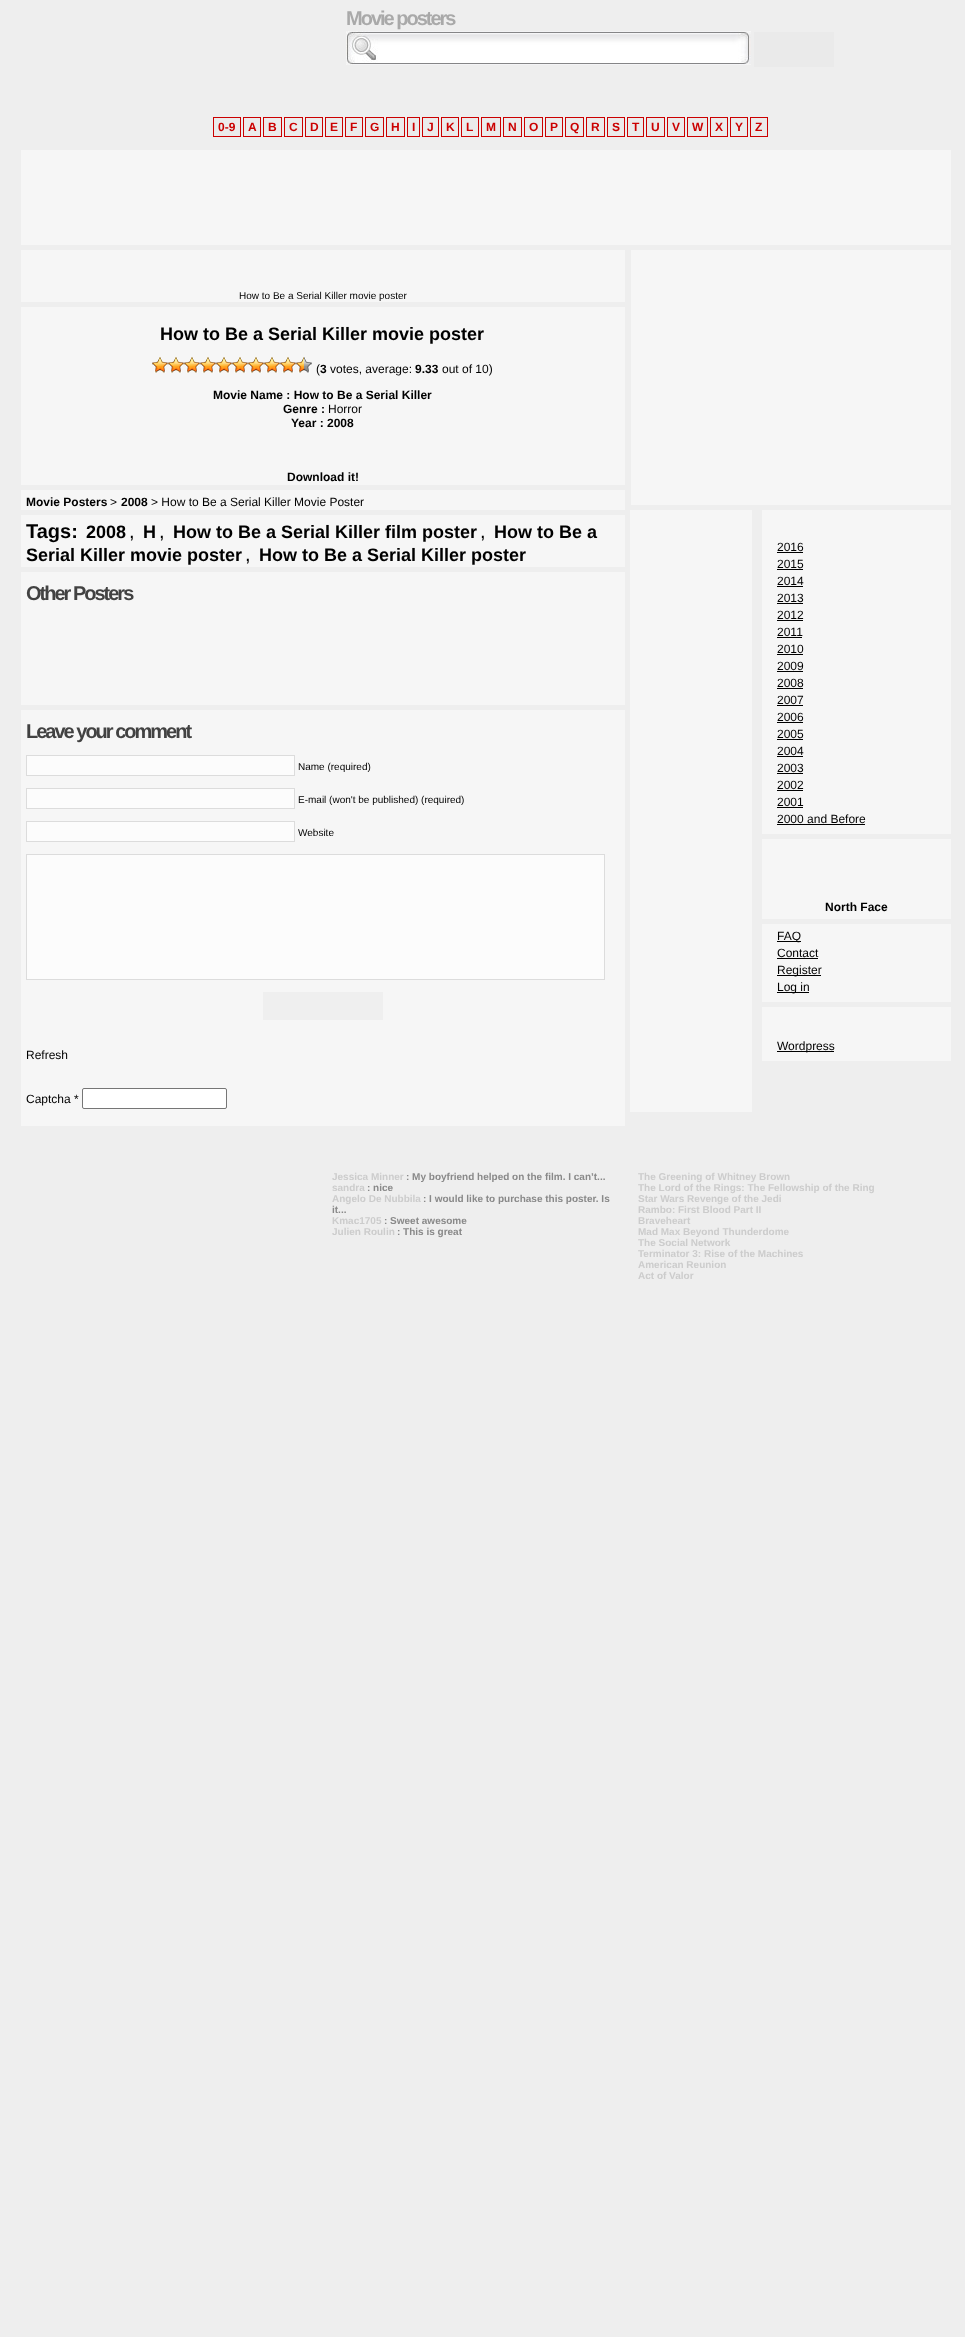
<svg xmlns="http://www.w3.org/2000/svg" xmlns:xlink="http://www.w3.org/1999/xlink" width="965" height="2337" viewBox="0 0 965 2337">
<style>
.cls-1{font:bold 20px Liberation Sans;letter-spacing:-2px;fill:#a9a9a9}
.cls-2{font:bold 12px Liberation Sans;fill:#cb0000}
.cls-3{font:10px Liberation Sans;fill:#000000}
.cls-4{font:bold 18px Liberation Sans;fill:#000000}
.cls-5{font:12px Liberation Sans;fill:#000000}
.cls-6{font:bold 12px Liberation Sans;fill:#000000}
.cls-7{font:bold 20px Liberation Sans;fill:#000000}
.cls-8{font:20px Liberation Sans;fill:#000000}
.cls-9{font:bold 20px Liberation Sans;letter-spacing:-2px;fill:#424242}
.cls-10{font:bold 10px Liberation Sans;fill:#cccccc}
.cls-11{font:bold 10px Liberation Sans;fill:#898989}
</style>
<rect width="100%" height="100%" fill="#eeeeee"/>
<image xlink:href="image0.png" x="346" y="31" width="405" height="34"/>
<rect fill="#eaeaea" x="754" y="32" width="80" height="35"/>
<rect fill="#ebebeb" stroke="#cb0000" x="213.5" y="117.5" width="27" height="19"/>
<rect fill="#ebebeb" stroke="#cb0000" x="243.5" y="117.5" width="17" height="19"/>
<rect fill="#ebebeb" stroke="#cb0000" x="263.5" y="117.5" width="18" height="19"/>
<rect fill="#ebebeb" stroke="#cb0000" x="284.5" y="117.5" width="18" height="19"/>
<rect fill="#ebebeb" stroke="#cb0000" x="305.5" y="117.5" width="17" height="19"/>
<rect fill="#ebebeb" stroke="#cb0000" x="325.5" y="117.5" width="17" height="19"/>
<rect fill="#ebebeb" stroke="#cb0000" x="345.5" y="117.5" width="17" height="19"/>
<rect fill="#ebebeb" stroke="#cb0000" x="365.5" y="117.5" width="18" height="19"/>
<rect fill="#ebebeb" stroke="#cb0000" x="386.5" y="117.5" width="18" height="19"/>
<rect fill="#ebebeb" stroke="#cb0000" x="407.5" y="117.5" width="12" height="19"/>
<rect fill="#ebebeb" stroke="#cb0000" x="422.5" y="117.5" width="16" height="19"/>
<rect fill="#ebebeb" stroke="#cb0000" x="441.5" y="117.5" width="17" height="19"/>
<rect fill="#ebebeb" stroke="#cb0000" x="461.5" y="117.5" width="17" height="19"/>
<rect fill="#ebebeb" stroke="#cb0000" x="481.5" y="117.5" width="19" height="19"/>
<rect fill="#ebebeb" stroke="#cb0000" x="503.5" y="117.5" width="18" height="19"/>
<rect fill="#ebebeb" stroke="#cb0000" x="524.5" y="117.5" width="18" height="19"/>
<rect fill="#ebebeb" stroke="#cb0000" x="545.5" y="117.5" width="17" height="19"/>
<rect fill="#ebebeb" stroke="#cb0000" x="565.5" y="117.5" width="18" height="19"/>
<rect fill="#ebebeb" stroke="#cb0000" x="586.5" y="117.5" width="18" height="19"/>
<rect fill="#ebebeb" stroke="#cb0000" x="607.5" y="117.5" width="17" height="19"/>
<rect fill="#ebebeb" stroke="#cb0000" x="627.5" y="117.5" width="16" height="19"/>
<rect fill="#ebebeb" stroke="#cb0000" x="646.5" y="117.5" width="18" height="19"/>
<rect fill="#ebebeb" stroke="#cb0000" x="667.5" y="117.5" width="17" height="19"/>
<rect fill="#ebebeb" stroke="#cb0000" x="687.5" y="117.5" width="20" height="19"/>
<rect fill="#ebebeb" stroke="#cb0000" x="710.5" y="117.5" width="17" height="19"/>
<rect fill="#ebebeb" stroke="#cb0000" x="730.5" y="117.5" width="17" height="19"/>
<rect fill="#ebebeb" stroke="#cb0000" x="750.5" y="117.5" width="17" height="19"/>
<rect fill="#f6f6f6" x="21" y="150" width="930" height="95"/>
<rect fill="#f6f6f6" x="21" y="250" width="604" height="52"/>
<rect fill="#f6f6f6" x="21" y="307" width="604" height="178"/>
<image xlink:href="image1.png" x="152" y="357" width="16" height="16"/>
<image xlink:href="image1.png" x="168" y="357" width="16" height="16"/>
<image xlink:href="image1.png" x="184" y="357" width="16" height="16"/>
<image xlink:href="image1.png" x="200" y="357" width="16" height="16"/>
<image xlink:href="image1.png" x="216" y="357" width="16" height="16"/>
<image xlink:href="image1.png" x="232" y="357" width="16" height="16"/>
<image xlink:href="image1.png" x="248" y="357" width="16" height="16"/>
<image xlink:href="image1.png" x="264" y="357" width="16" height="16"/>
<image xlink:href="image1.png" x="280" y="357" width="16" height="16"/>
<image xlink:href="image2.png" x="296" y="357" width="16" height="16"/>
<rect fill="#f6f6f6" x="21" y="490" width="604" height="20"/>
<rect fill="#f6f6f6" x="21" y="515" width="604" height="52"/>
<rect fill="#f6f6f6" x="21" y="572" width="604" height="133"/>
<rect fill="#f6f6f6" x="21" y="710" width="604" height="416"/>
<rect fill="#fcfcfc" stroke="#dcdcdc" x="26.5" y="755.5" width="268" height="20"/>
<rect fill="#fcfcfc" stroke="#dcdcdc" x="26.5" y="788.5" width="268" height="20"/>
<rect fill="#fcfcfc" stroke="#dcdcdc" x="26.5" y="821.5" width="268" height="20"/>
<rect fill="#fcfcfc" stroke="#dcdcdc" x="26.5" y="854.5" width="578" height="125"/>
<rect fill="#efefef" x="263" y="992" width="120" height="28"/>
<rect fill="#ffffff" stroke="#767676" x="82.5" y="1088.5" width="144" height="20" rx="1.5"/>
<rect fill="#f6f6f6" x="631" y="250" width="320" height="255"/>
<rect fill="#f6f6f6" x="630" y="510" width="122" height="602"/>
<rect fill="#f6f6f6" x="762" y="510" width="189" height="324"/>
<rect fill="#000000" x="777" y="552" width="26" height="1"/>
<rect fill="#000000" x="777" y="569" width="26" height="1"/>
<rect fill="#000000" x="777" y="586" width="26" height="1"/>
<rect fill="#000000" x="777" y="603" width="26" height="1"/>
<rect fill="#000000" x="777" y="620" width="26" height="1"/>
<rect fill="#000000" x="777" y="637" width="25" height="1"/>
<rect fill="#000000" x="777" y="654" width="26" height="1"/>
<rect fill="#000000" x="777" y="671" width="26" height="1"/>
<rect fill="#000000" x="777" y="688" width="26" height="1"/>
<rect fill="#000000" x="777" y="705" width="26" height="1"/>
<rect fill="#000000" x="777" y="722" width="26" height="1"/>
<rect fill="#000000" x="777" y="739" width="26" height="1"/>
<rect fill="#000000" x="777" y="756" width="26" height="1"/>
<rect fill="#000000" x="777" y="773" width="26" height="1"/>
<rect fill="#000000" x="777" y="790" width="26" height="1"/>
<rect fill="#000000" x="777" y="807" width="26" height="1"/>
<rect fill="#000000" x="777" y="824" width="88" height="1"/>
<rect fill="#f6f6f6" x="762" y="839" width="189" height="80"/>
<rect fill="#f6f6f6" x="762" y="924" width="189" height="78"/>
<rect fill="#000000" x="777" y="941" width="24" height="1"/>
<rect fill="#000000" x="777" y="958" width="41" height="1"/>
<rect fill="#000000" x="777" y="975" width="44" height="1"/>
<rect fill="#000000" x="777" y="992" width="32" height="1"/>
<rect fill="#f6f6f6" x="762" y="1007" width="189" height="54"/>
<rect fill="#000000" x="777" y="1051" width="57" height="1"/>
<text class="cls-1" x="346" y="25">Movie posters</text>
<text class="cls-2" x="218" y="131">0-9</text>
<text class="cls-2" x="248" y="131">A</text>
<text class="cls-2" x="268" y="131">B</text>
<text class="cls-2" x="289" y="131">C</text>
<text class="cls-2" x="310" y="131">D</text>
<text class="cls-2" x="330" y="131">E</text>
<text class="cls-2" x="350" y="131">F</text>
<text class="cls-2" x="370" y="131">G</text>
<text class="cls-2" x="391" y="131">H</text>
<text class="cls-2" x="412" y="131">I</text>
<text class="cls-2" x="427" y="131">J</text>
<text class="cls-2" x="446" y="131">K</text>
<text class="cls-2" x="466" y="131">L</text>
<text class="cls-2" x="486" y="131">M</text>
<text class="cls-2" x="508" y="131">N</text>
<text class="cls-2" x="529" y="131">O</text>
<text class="cls-2" x="550" y="131">P</text>
<text class="cls-2" x="570" y="131">Q</text>
<text class="cls-2" x="591" y="131">R</text>
<text class="cls-2" x="612" y="131">S</text>
<text class="cls-2" x="632" y="131">T</text>
<text class="cls-2" x="651" y="131">U</text>
<text class="cls-2" x="672" y="131">V</text>
<text class="cls-2" x="692" y="131">W</text>
<text class="cls-2" x="715" y="131">X</text>
<text class="cls-2" x="735" y="131">Y</text>
<text class="cls-2" x="755" y="131">Z</text>
<text class="cls-3" x="239" y="299">How to Be a Serial Killer movie poster</text>
<text class="cls-4" x="160" y="340">How to Be a Serial Killer movie poster</text>
<text class="cls-5" x="316" y="373">(</text>
<text class="cls-6" x="320" y="373">3</text>
<text class="cls-5" x="330" y="373">votes, average:</text>
<text class="cls-6" x="415" y="373">9.33</text>
<text class="cls-5" x="442" y="373">out of 10)</text>
<text class="cls-6" x="213" y="399">Movie Name : How to Be a Serial Killer</text>
<text class="cls-6" x="283" y="413">Genre :</text>
<text class="cls-5" x="328" y="413">Horror</text>
<text class="cls-6" x="291" y="427">Year : 2008</text>
<text class="cls-6" x="287" y="481">Download it!</text>
<text class="cls-6" x="26" y="506">Movie Posters</text>
<text class="cls-5" x="110" y="506">&gt;</text>
<text class="cls-6" x="121" y="506">2008</text>
<text class="cls-5" x="151" y="506">&gt; How to Be a Serial Killer Movie Poster</text>
<text class="cls-7" x="26" y="538">Tags:</text>
<text class="cls-4" x="86" y="538">2008</text>
<text class="cls-8" x="129" y="538">,</text>
<text class="cls-4" x="143" y="538">H</text>
<text class="cls-8" x="159" y="538">,</text>
<text class="cls-4" x="173" y="538">How to Be a Serial Killer film poster</text>
<text class="cls-8" x="480" y="538">,</text>
<text class="cls-4" x="494" y="538">How to Be a</text>
<text class="cls-4" x="26" y="561">Serial Killer movie poster</text>
<text class="cls-8" x="245" y="561">,</text>
<text class="cls-4" x="259" y="561">How to Be a Serial Killer poster</text>
<text class="cls-9" x="26" y="600">Other Posters</text>
<text class="cls-9" x="26" y="738">Leave your comment</text>
<text class="cls-3" x="298" y="770">Name (required)</text>
<text class="cls-3" x="298" y="803">E-mail (won't be published) (required)</text>
<text class="cls-3" x="298" y="836">Website</text>
<text class="cls-5" x="26" y="1059">Refresh</text>
<text class="cls-5" x="26" y="1103">Captcha *</text>
<text class="cls-5"><tspan x="777" y="551">2016</tspan><tspan x="777" y="568">2015</tspan><tspan x="777" y="585">2014</tspan><tspan x="777" y="602">2013</tspan><tspan x="777" y="619">2012</tspan><tspan x="777" y="636">2011</tspan><tspan x="777" y="653">2010</tspan><tspan x="777" y="670">2009</tspan><tspan x="777" y="687">2008</tspan><tspan x="777" y="704">2007</tspan><tspan x="777" y="721">2006</tspan><tspan x="777" y="738">2005</tspan><tspan x="777" y="755">2004</tspan><tspan x="777" y="772">2003</tspan><tspan x="777" y="789">2002</tspan><tspan x="777" y="806">2001</tspan><tspan x="777" y="823">2000 and Before</tspan></text>
<text class="cls-6" x="825" y="911">North Face</text>
<text class="cls-5"><tspan x="777" y="940">FAQ</tspan><tspan x="777" y="957">Contact</tspan><tspan x="777" y="974">Register</tspan><tspan x="777" y="991">Log in</tspan></text>
<text class="cls-5" x="777" y="1050">Wordpress</text>
<text class="cls-10" x="332" y="1180">Jessica Minner</text>
<text class="cls-11" x="406" y="1180">: My boyfriend helped on the film. I can’t...</text>
<text class="cls-10" x="332" y="1191">sandra</text>
<text class="cls-11" x="367" y="1191">: nice</text>
<text class="cls-10" x="332" y="1202">Angelo De Nubbila</text>
<text class="cls-11" x="423" y="1202">: I would like to purchase this poster. Is</text>
<text class="cls-11" x="332" y="1213">it...</text>
<text class="cls-10" x="332" y="1224">Kmac1705</text>
<text class="cls-11" x="384" y="1224">: Sweet awesome</text>
<text class="cls-10" x="332" y="1235">Julien Roulin</text>
<text class="cls-11" x="397" y="1235">: This is great</text>
<text class="cls-10"><tspan x="638" y="1180">The Greening of Whitney Brown</tspan><tspan x="638" y="1191">The Lord of the Rings: The Fellowship of the Ring</tspan><tspan x="638" y="1202">Star Wars Revenge of the Jedi</tspan><tspan x="638" y="1213">Rambo: First Blood Part II</tspan><tspan x="638" y="1224">Braveheart</tspan><tspan x="638" y="1235">Mad Max Beyond Thunderdome</tspan><tspan x="638" y="1246">The Social Network</tspan><tspan x="638" y="1257">Terminator 3: Rise of the Machines</tspan><tspan x="638" y="1268">American Reunion</tspan><tspan x="638" y="1279">Act of Valor</tspan></text>
</svg>
